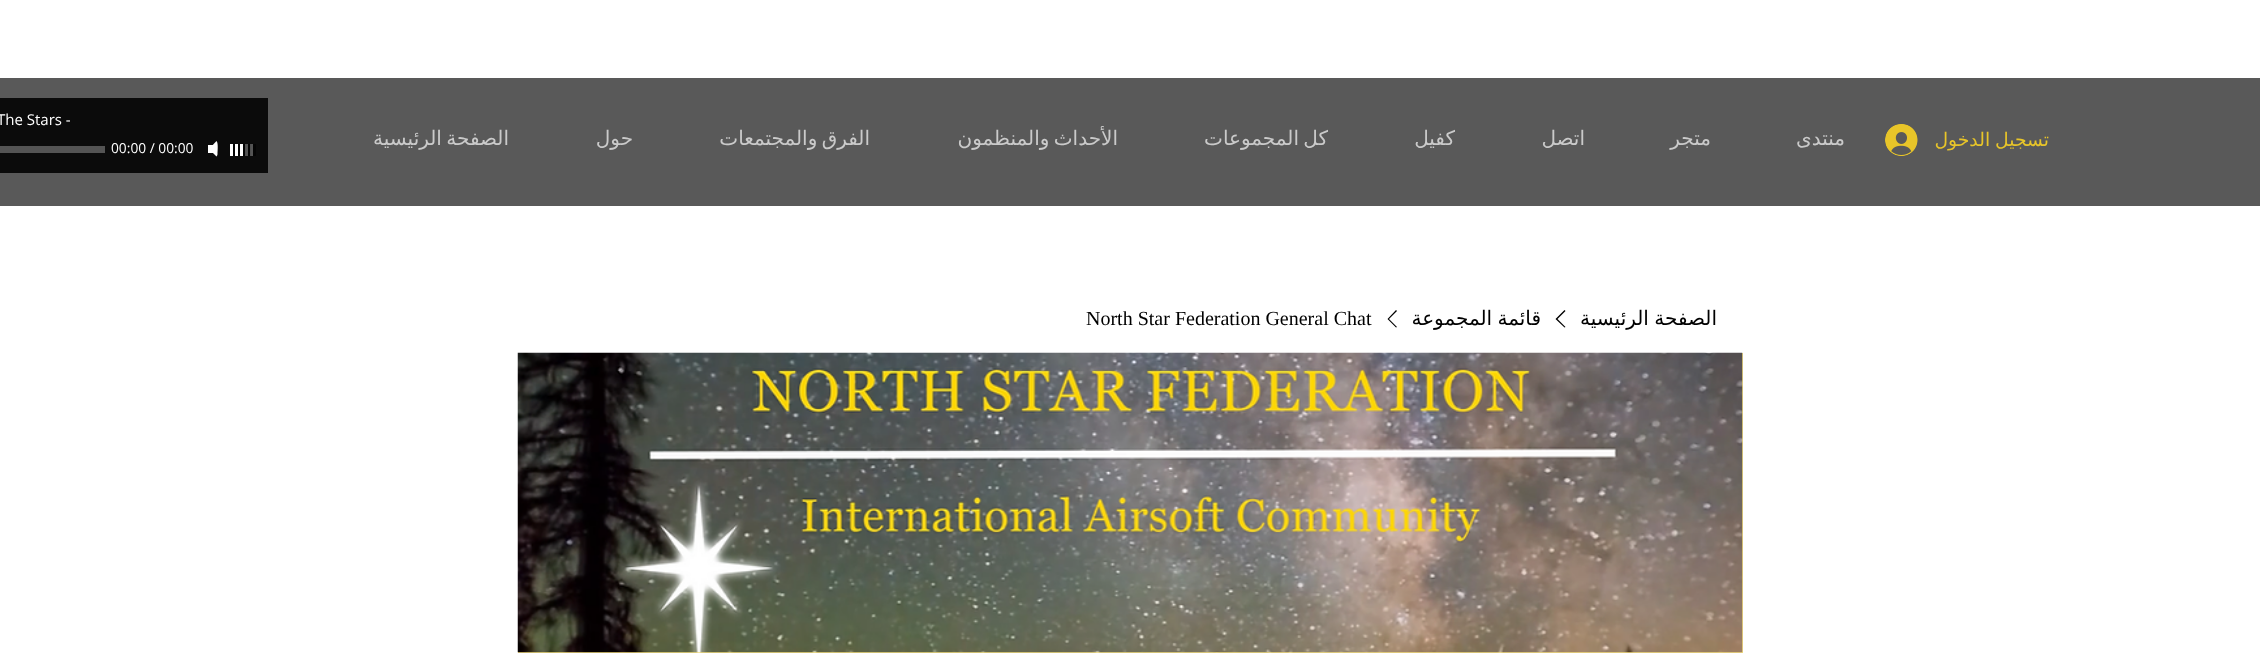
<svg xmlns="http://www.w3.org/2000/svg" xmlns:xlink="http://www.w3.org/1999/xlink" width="2260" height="655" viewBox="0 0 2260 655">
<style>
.cls-1{font:18.75px DejaVu Sans;direction:rtl;fill:#e8c529}
.cls-2{font:20px DejaVu Sans;direction:rtl;fill:#cacaca}
.cls-3{font:15px Open Sans;fill:#ffffff}
.cls-4{font:13.75px Open Sans;fill:#ffffff}
.cls-5{font:20px DejaVu Sans;direction:rtl;fill:#000000}
.cls-6{font:20px Liberation Serif;fill:#000000}
</style>
<rect width="100%" height="100%" fill="#ffffff"/>
<rect fill="#595959" x="0" y="78" width="2260" height="128"/>
<image xlink:href="image0.png" x="1885" y="124" width="33" height="32"/>
<rect fill="#0b0b0b" x="0" y="98" width="268" height="75"/>
<rect fill="#545454" x="251" y="144" width="2" height="12"/>
<rect fill="#545454" x="246" y="144" width="2" height="12"/>
<rect fill="#040404" x="253" y="144" width="3" height="12"/>
<rect fill="#040404" x="248" y="144" width="2" height="12"/>
<rect fill="#4f4f4f" x="250" y="144" width="1" height="12"/>
<rect fill="#040404" x="243" y="144" width="2" height="12"/>
<rect fill="#4f4f4f" x="245" y="144" width="1" height="12"/>
<rect fill="#ffffff" x="240" y="144" width="3" height="12"/>
<rect fill="#040404" x="238" y="144" width="2" height="12"/>
<rect fill="#ffffff" x="235" y="144" width="3" height="12"/>
<rect fill="#040404" x="233" y="144" width="2" height="12"/>
<rect fill="#ffffff" x="230" y="144" width="3" height="12"/>
<path fill="#ffffff" d="M217.5 154C217.5 151.5 218.5 143 216.5 141L209 149L216.5 156.5C217 156 217.5 155 217.5 154Z"/>
<rect fill="#ffffff" x="208" y="145" width="5" height="8"/>
<rect fill="#545454" x="0" y="146" width="105" height="7"/>
<path fill="#000000" fill-rule="evenodd" d="M1564.5 310L1555.5 319L1564.5 327.5L1565.5 327L1557.5 319L1565.5 311Z"/>
<path fill="#000000" fill-rule="evenodd" d="M1396 310L1387.5 319L1396 327.5L1397 327L1389 319L1397 311Z"/>
<rect fill="#f2dd7f" x="518" y="353" width="1225" height="300"/>
<image xlink:href="image1.png" x="517" y="352" width="1226" height="301"/>
<text class="cls-1" x="2049" y="146" word-spacing="-1">تسجيل الدخول</text>
<text class="cls-2" x="1845" y="145">منتدى</text>
<text class="cls-2" x="1711" y="145">متجر</text>
<text class="cls-2" x="1585" y="145">اتصل</text>
<text class="cls-2" x="1455" y="145">كفيل</text>
<text class="cls-2" x="1328" y="145" word-spacing="-2">كل المجموعات</text>
<text class="cls-2" x="1118" y="145" word-spacing="-2">الأحداث والمنظمون</text>
<text class="cls-2" x="870" y="145" word-spacing="-2">الفرق والمجتمعات</text>
<text class="cls-2" x="633" y="145">حول</text>
<text class="cls-2" x="509" y="145" word-spacing="-2">الصفحة الرئيسية</text>
<text class="cls-3" x="-3" y="125">The Stars -</text>
<text class="cls-4" x="111" y="153">00:00 / 00:00</text>
<text class="cls-5" x="1717" y="325" word-spacing="-1">الصفحة الرئيسية</text>
<text class="cls-5" x="1541" y="325" word-spacing="-1">قائمة المجموعة</text>
<text class="cls-6" x="1086" y="325">North Star Federation General Chat</text>
</svg>
